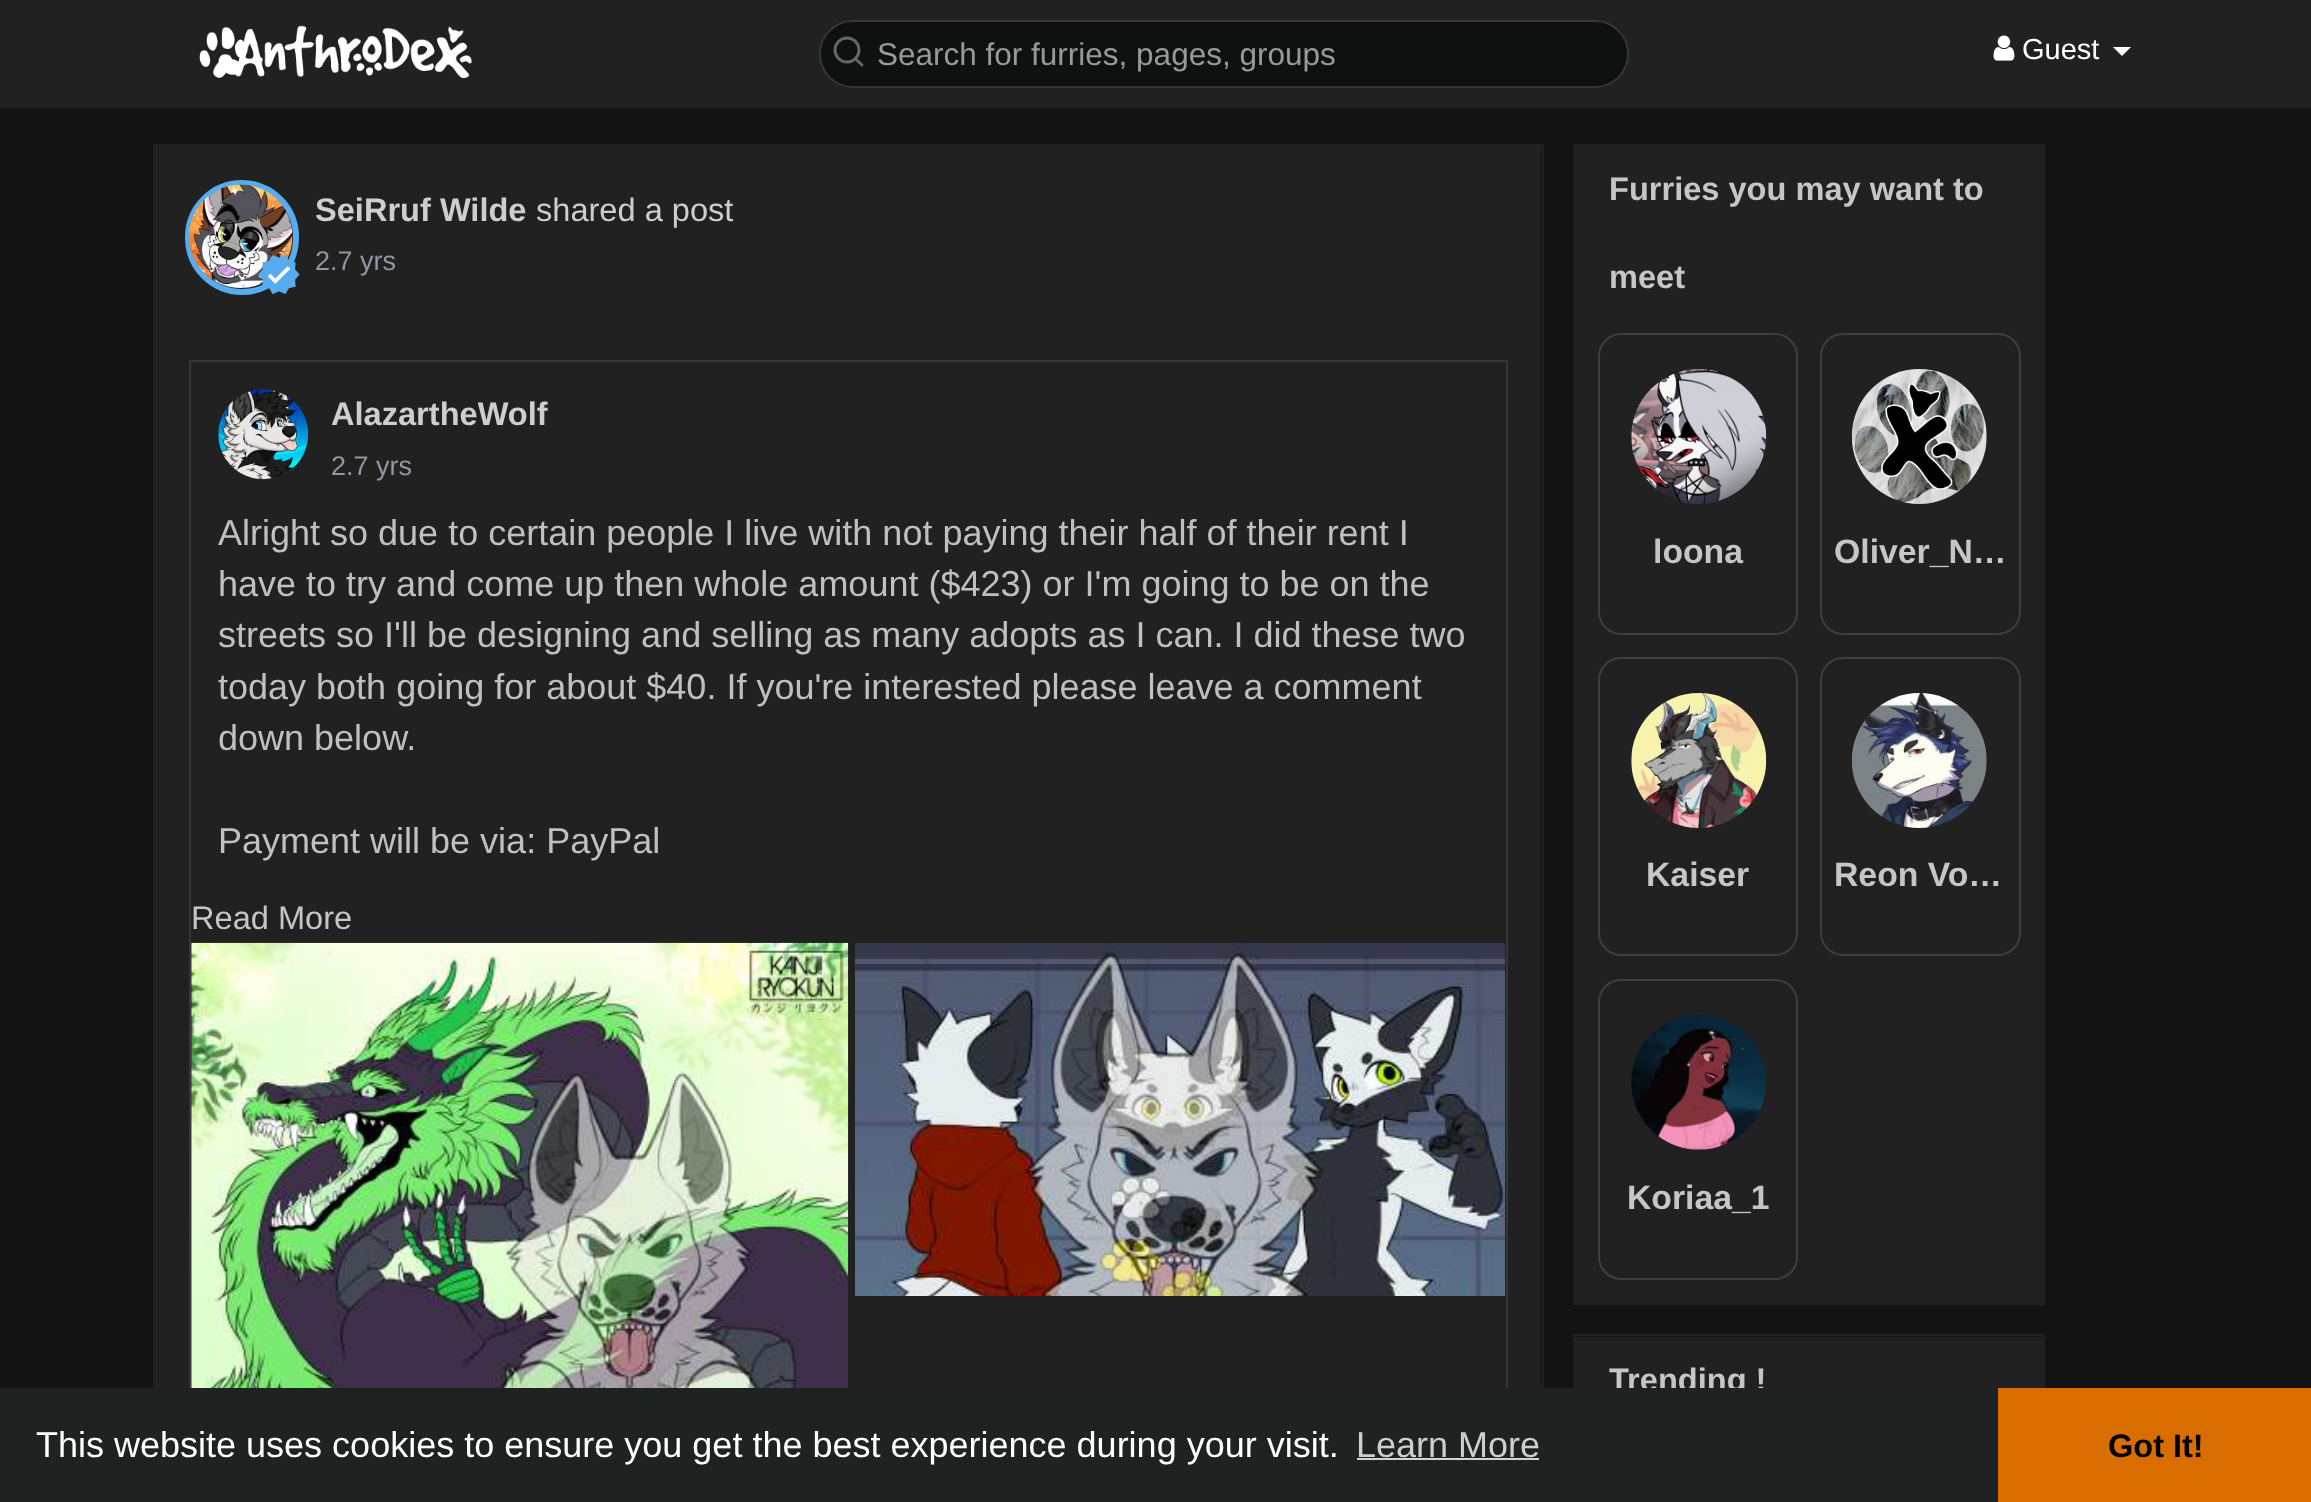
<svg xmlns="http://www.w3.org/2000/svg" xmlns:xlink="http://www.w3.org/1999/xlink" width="2311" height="1502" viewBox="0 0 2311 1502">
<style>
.cls-1{font:31.5px Liberation Sans;fill:#999999}
.cls-2{font:29px Liberation Sans;fill:#ffffff}
.cls-3{font:bold 32.6px Liberation Sans;fill:#cecece}
.cls-4{font:32.6px Liberation Sans;fill:#cecece}
.cls-5{font:27px Liberation Sans;fill:#9197a3}
.cls-6{font:36px Liberation Sans;fill:#c0c0c0}
.cls-7{font:32.6px Liberation Sans;fill:#c6c6c6}
.cls-8{font:bold 32.6px Liberation Sans;fill:#c6c6c6}
.cls-9{font:bold 33.75px Liberation Sans;fill:#c6c6c6}
.cls-10{font:36px Liberation Sans;fill:#ffffff}
.cls-11{font:36px Liberation Sans;fill:#cecece}
.cls-12{font:bold 32.5px Liberation Sans;fill:#000000}
</style>
<rect width="100%" height="100%" fill="#131313"/>
<rect fill="#212121" x="0" y="0" width="2311" height="108"/>
<image xlink:href="image0.png" x="199" y="25" width="273" height="53"/>
<rect fill="#0f1110" stroke="#363636" stroke-width="2" x="820" y="21" width="808" height="66" rx="33"/>
<circle fill="none" stroke="#666666" stroke-width="3" cx="847" cy="50" r="12"/>
<path fill="none" stroke="#666666" stroke-width="3" stroke-linecap="round" stroke-linejoin="round" d="M862 65L855 58.5"/>
<image xlink:href="image1.png" x="1993" y="35" width="22" height="26"/>
<path fill="#ffffff" d="M2113 47H2131L2122 56Z"/>
<rect fill="none" stroke="#212121" stroke-width="2" x="154" y="145" width="1389" height="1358"/>
<rect fill="#212121" x="155" y="146" width="1386" height="1242"/>
<rect fill="none" stroke="#55acee" stroke-width="6" x="188" y="183" width="108" height="109" rx="54"/>
<image xlink:href="image2.png" x="189" y="184" width="104" height="104"/>
<circle fill="#ffffff" cx="279.5" cy="274.5" r="13.5"/>
<image xlink:href="image3.png" x="258" y="255" width="42" height="40"/>
<rect fill="none" stroke="#363636" stroke-width="2" x="190" y="361" width="1317" height="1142"/>
<image xlink:href="image4.png" x="218" y="389" width="91" height="91"/>
<image xlink:href="image5.png" x="191" y="942" width="658" height="446"/>
<image xlink:href="image6.png" x="855" y="943" width="651" height="353"/>
<rect fill="none" stroke="#212121" stroke-width="2" x="1574" y="145" width="470" height="1159"/>
<rect fill="#212121" x="1575" y="146" width="468" height="1157"/>
<rect fill="none" stroke="#3f3f3f" stroke-width="2" x="1599" y="334" width="198" height="300" rx="22"/>
<image xlink:href="image7.png" x="1631" y="369" width="136" height="135"/>
<rect fill="none" stroke="#3f3f3f" stroke-width="2" x="1821" y="334" width="199" height="300" rx="22"/>
<image xlink:href="image8.png" x="1851" y="369" width="136" height="135"/>
<rect fill="none" stroke="#3f3f3f" stroke-width="2" x="1599" y="658" width="198" height="297" rx="22"/>
<image xlink:href="image9.png" x="1631" y="693" width="136" height="135"/>
<rect fill="none" stroke="#3f3f3f" stroke-width="2" x="1821" y="658" width="199" height="297" rx="22"/>
<image xlink:href="image10.png" x="1851" y="693" width="136" height="135"/>
<rect fill="none" stroke="#3f3f3f" stroke-width="2" x="1599" y="980" width="198" height="299" rx="22"/>
<image xlink:href="image11.png" x="1631" y="1015" width="135" height="135"/>
<rect fill="none" stroke="#212121" stroke-width="2" x="1574" y="1335" width="470" height="91"/>
<rect fill="#212121" x="1575" y="1337" width="468" height="51"/>
<rect fill="#d96d00" x="1998" y="1388" width="313" height="114"/>
<text class="cls-1" x="877" y="65">Search for furries, pages, groups</text>
<text class="cls-2" x="2022" y="59">Guest</text>
<text class="cls-3" x="315" y="221">SeiRruf Wilde</text>
<text class="cls-4" x="536" y="221">shared a post</text>
<text class="cls-5" x="315" y="270">2.7 yrs</text>
<text class="cls-3" x="331" y="425">AlazartheWolf</text>
<text class="cls-5" x="331" y="475">2.7 yrs</text>
<text class="cls-6"><tspan x="218" y="545">Alright so due to certain people I live with not paying their half of their rent I</tspan><tspan x="218" y="596">have to try and come up then whole amount ($423) or I'm going to be on the</tspan><tspan x="218" y="647">streets so I'll be designing and selling as many adopts as I can. I did these two</tspan><tspan x="218" y="699">today both going for about $40. If you're interested please leave a comment</tspan><tspan x="218" y="750">down below.</tspan></text>
<text class="cls-6" x="218" y="853">Payment will be via: PayPal</text>
<text class="cls-7" x="191" y="929">Read More</text>
<text class="cls-8" x="1609" y="200">Furries you may want to</text>
<text class="cls-8" x="1609" y="288">meet</text>
<text class="cls-9" x="1653" y="563">loona</text>
<text class="cls-9" x="1834" y="563">Oliver_N…</text>
<text class="cls-9" x="1646" y="886">Kaiser</text>
<text class="cls-9" x="1834" y="886">Reon Vo…</text>
<text class="cls-9" x="1627" y="1209">Koriaa_1</text>
<text class="cls-8" x="1609" y="1391">Trending !</text>
<rect fill="#1e2321" x="0" y="1388" width="1998" height="114"/>
<text class="cls-10" x="36" y="1457">This website uses cookies to ensure you get the best experience during your visit.</text>
<text class="cls-11" x="1356" y="1457">Learn More</text>
<rect fill="#d2d3d3" x="1357" y="1458" width="182" height="2"/>
<text class="cls-12" x="2108" y="1457">Got It!</text>
</svg>
